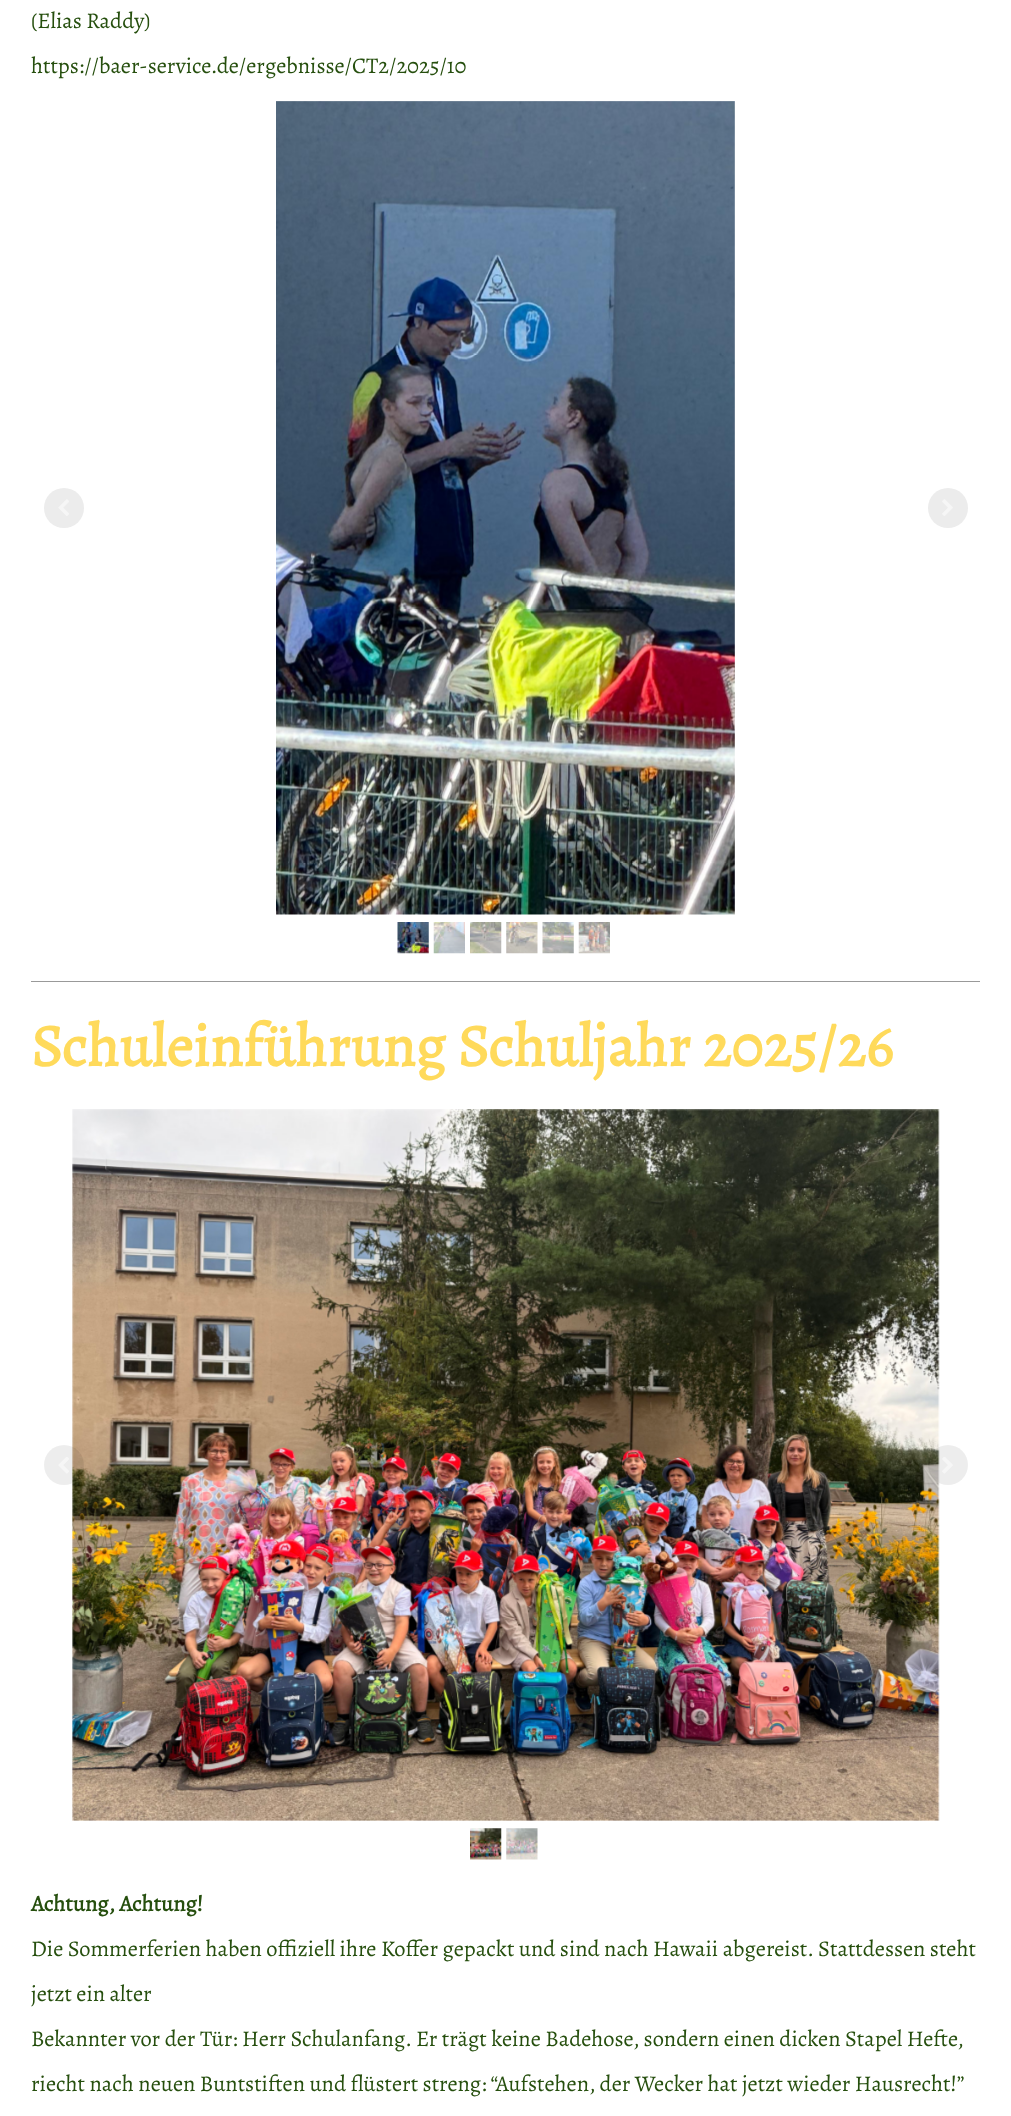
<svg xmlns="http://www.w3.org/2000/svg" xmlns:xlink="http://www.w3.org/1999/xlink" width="1011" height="2116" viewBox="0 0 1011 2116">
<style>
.cls-1{font:22.5px Alegreya;fill:#264f0e}
.cls-2{font:bold 60px Alegreya;fill:#ffda5b}
.cls-3{font:bold 22.5px Alegreya;fill:#264f0e}
</style>
<rect width="100%" height="100%" fill="#ffffff"/>
<image xlink:href="image0.png" x="276" y="101" width="459" height="814"/>
<circle fill="#ececec" cx="64" cy="508" r="20"/>
<image xlink:href="image1.png" x="58" y="499" width="11" height="17"/>
<circle fill="#ececec" cx="948" cy="508" r="20"/>
<image xlink:href="image2.png" x="942" y="499" width="11" height="17"/>
<image xlink:href="image3.png" x="397" y="922" width="32" height="32"/>
<image xlink:href="image4.png" x="433" y="922" width="32" height="32"/>
<image xlink:href="image5.png" x="470" y="922" width="32" height="32"/>
<image xlink:href="image6.png" x="506" y="922" width="32" height="32"/>
<image xlink:href="image7.png" x="542" y="922" width="32" height="32"/>
<image xlink:href="image8.png" x="578" y="922" width="32" height="32"/>
<rect fill="#999999" x="31" y="981" width="949" height="1"/>
<image xlink:href="image9.png" x="72" y="1109" width="868" height="712"/>
<circle fill="#000000" fill-opacity="0.07" cx="64" cy="1465" r="20"/>
<image xlink:href="image10.png" x="58" y="1457" width="11" height="17"/>
<circle fill="#000000" fill-opacity="0.07" cx="948" cy="1465" r="20"/>
<image xlink:href="image11.png" x="942" y="1457" width="11" height="17"/>
<image xlink:href="image12.png" x="470" y="1828" width="32" height="32"/>
<image xlink:href="image13.png" x="506" y="1828" width="32" height="32"/>
<text class="cls-1" x="31" y="28">(Elias Raddy)</text>
<text class="cls-1" x="31" y="73">https://baer-service.de/ergebnisse/CT2/2025/10</text>
<text class="cls-2" x="31" y="1066">Schuleinführung Schuljahr 2025/26</text>
<text class="cls-3" x="31" y="1911">Achtung, Achtung!</text>
<text class="cls-1" x="31" y="1956">Die Sommerferien haben offiziell ihre Koffer gepackt und sind nach Hawaii abgereist. Stattdessen steht</text>
<text class="cls-1" x="31" y="2001">jetzt ein alter</text>
<text class="cls-1" x="31" y="2046">Bekannter vor der Tür: Herr Schulanfang. Er trägt keine Badehose, sondern einen dicken Stapel Hefte,</text>
<text class="cls-1" x="31" y="2091">riecht nach neuen Buntstiften und flüstert streng: “Aufstehen, der Wecker hat jetzt wieder Hausrecht!”</text>
</svg>
